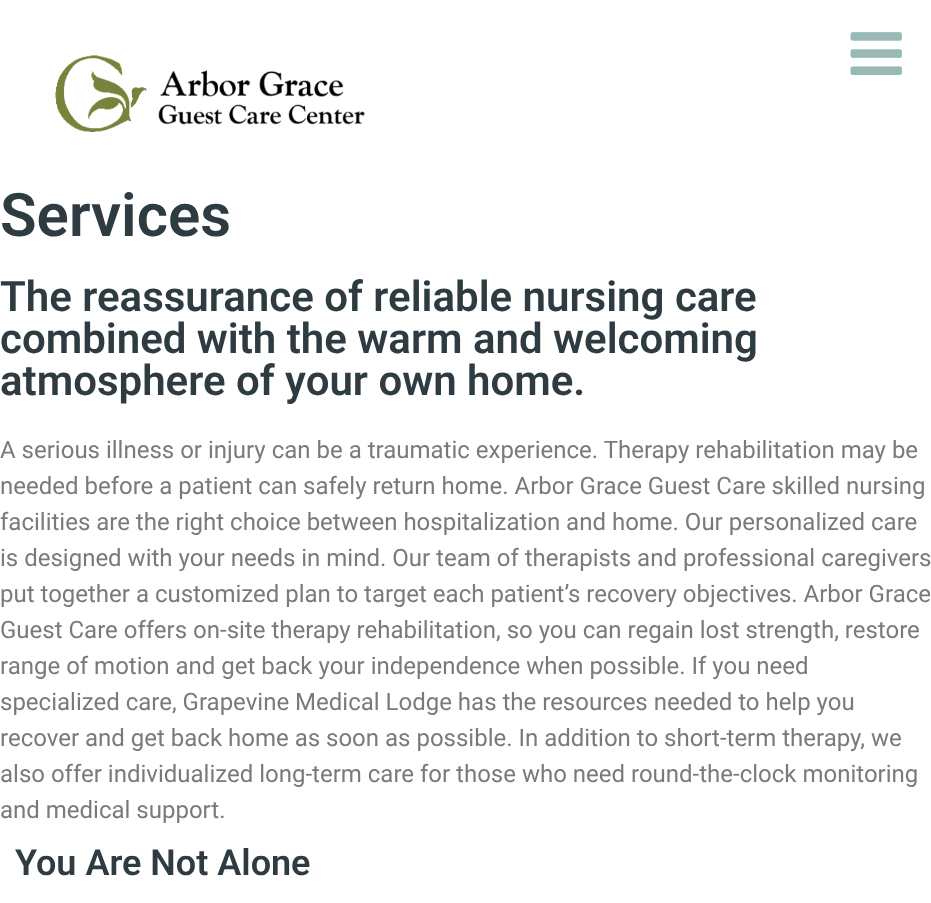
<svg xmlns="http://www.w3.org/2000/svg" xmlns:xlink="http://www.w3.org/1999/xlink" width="931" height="903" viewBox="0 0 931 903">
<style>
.cls-1{font:600 60px Roboto;fill:#2e3c42}
.cls-2{font:600 42px Roboto;fill:#2e3c42}
.cls-3{font:24px Roboto;fill:#7a7a7a}
.cls-4{font:600 36px Roboto;fill:#2e3c42}
</style>
<rect width="100%" height="100%" fill="#ffffff"/>
<image xlink:href="image0.png" x="850" y="32" width="52" height="43"/>
<image xlink:href="image1.png" x="55" y="55" width="310" height="77"/>
<text class="cls-1" x="0" y="236">Services</text>
<text class="cls-2"><tspan x="0" y="311">The reassurance of reliable nursing care</tspan><tspan x="0" y="353">combined with the warm and welcoming</tspan><tspan x="0" y="395">atmosphere of your own home.</tspan></text>
<text class="cls-3"><tspan x="0" y="458">A serious illness or injury can be a traumatic experience. Therapy rehabilitation may be</tspan><tspan x="0" y="494">needed before a patient can safely return home. Arbor Grace Guest Care skilled nursing</tspan><tspan x="0" y="530">facilities are the right choice between hospitalization and home. Our personalized care</tspan><tspan x="0" y="566">is designed with your needs in mind. Our team of therapists and professional caregivers</tspan><tspan x="0" y="602">put together a customized plan to target each patient’s recovery objectives. Arbor Grace</tspan><tspan x="0" y="638">Guest Care offers on-site therapy rehabilitation, so you can regain lost strength, restore</tspan><tspan x="0" y="674">range of motion and get back your independence when possible. If you need</tspan><tspan x="0" y="710">specialized care, Grapevine Medical Lodge has the resources needed to help you</tspan><tspan x="0" y="746">recover and get back home as soon as possible. In addition to short-term therapy, we</tspan><tspan x="0" y="782">also offer individualized long-term care for those who need round-the-clock monitoring</tspan><tspan x="0" y="818">and medical support.</tspan></text>
<text class="cls-4" x="15" y="875">You Are Not Alone</text>
</svg>
